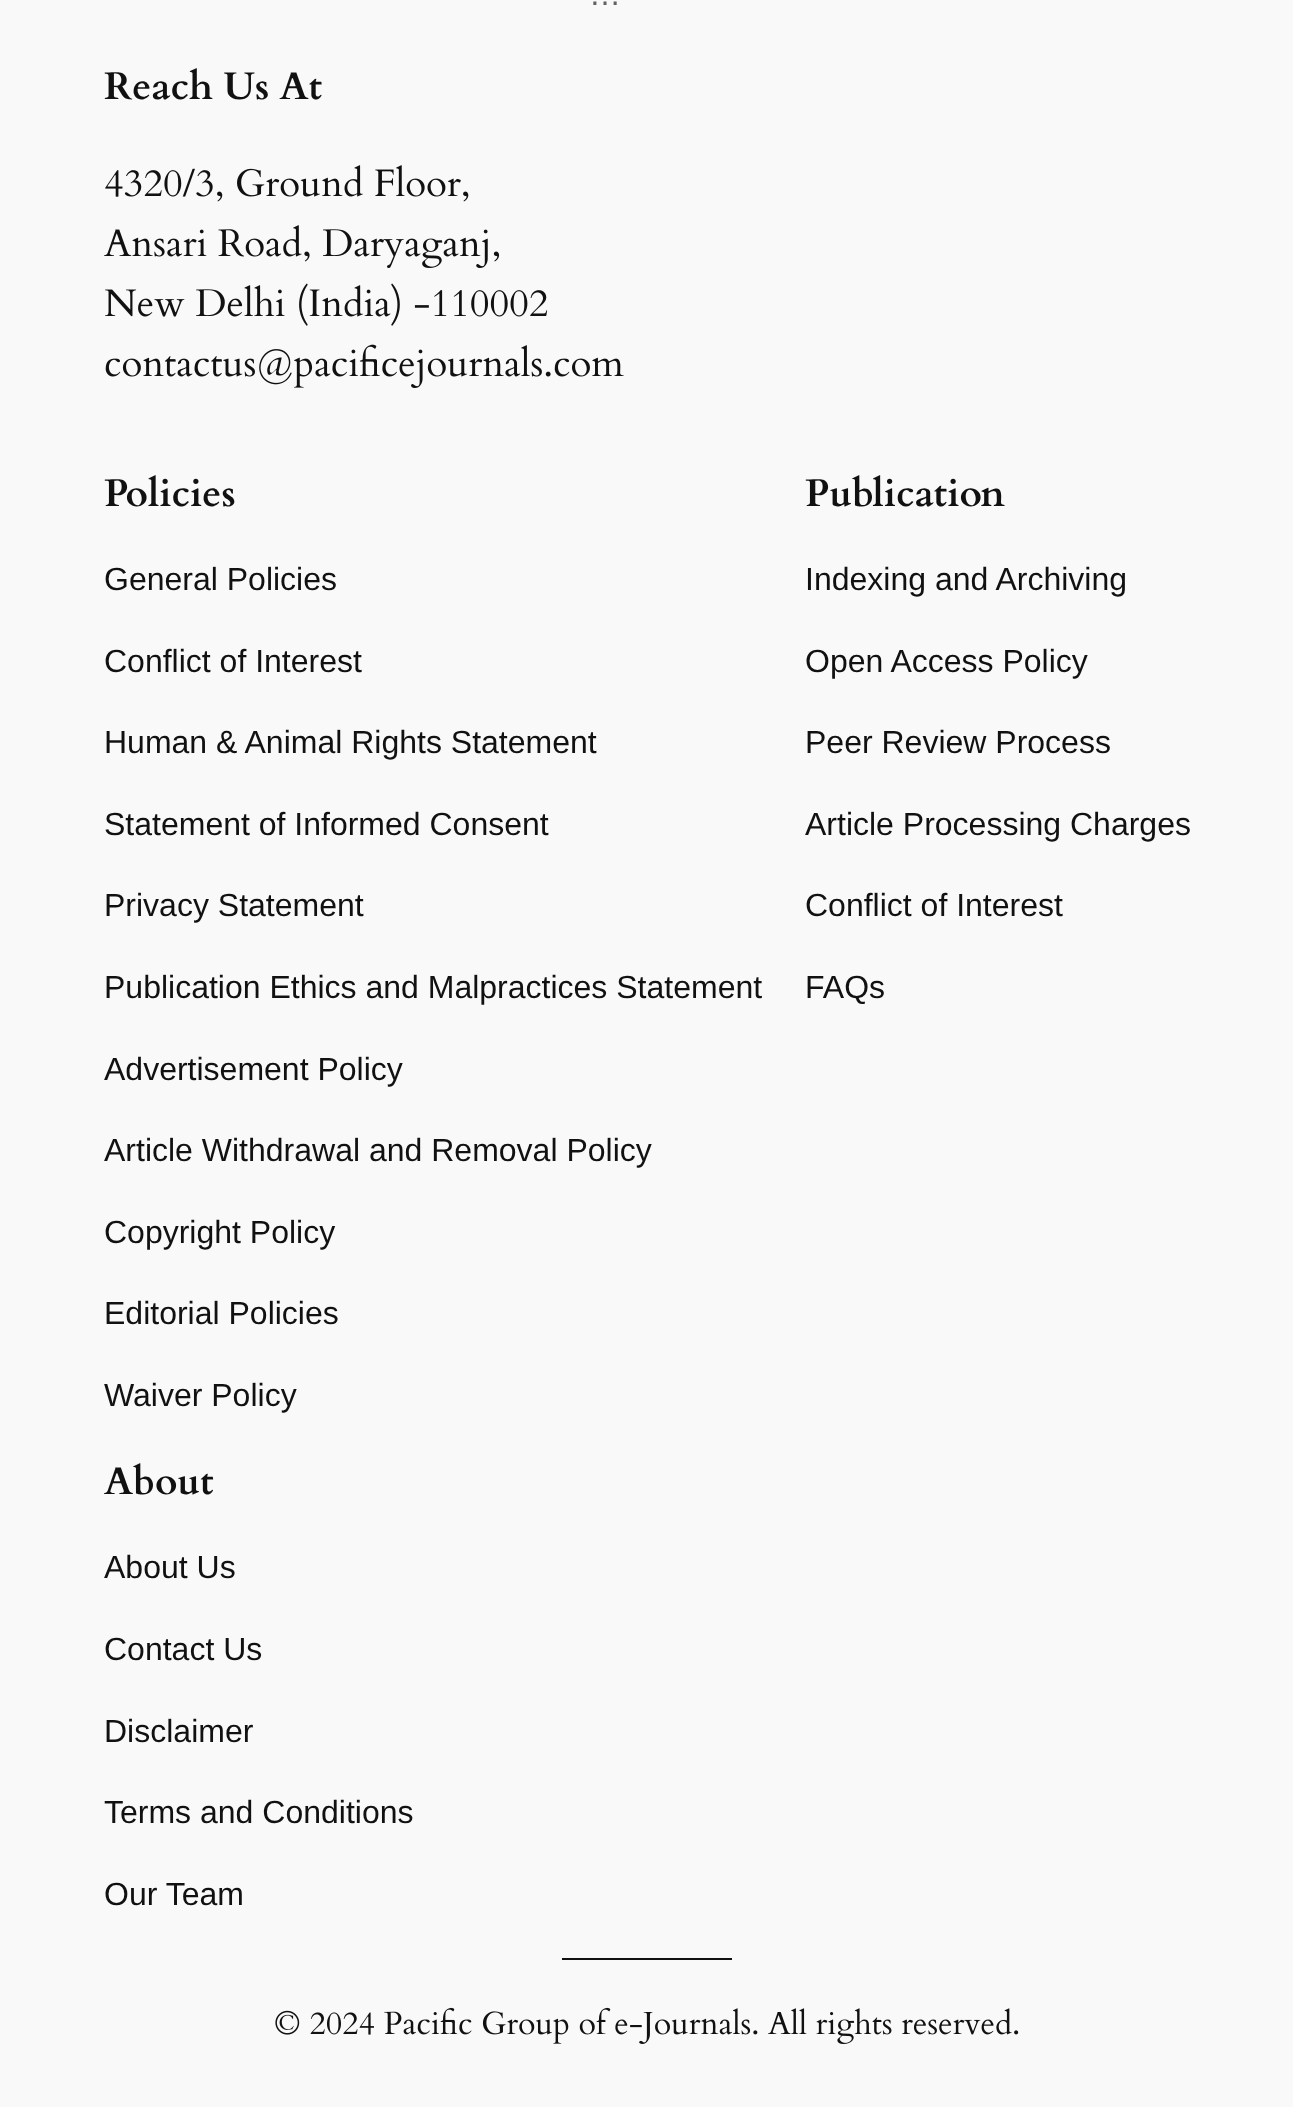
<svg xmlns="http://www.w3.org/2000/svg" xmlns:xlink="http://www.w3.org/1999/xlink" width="1293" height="2107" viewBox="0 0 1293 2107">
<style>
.cls-1{font:32px Liberation Sans;fill:#636363}
.cls-2{font:bold 38.5px Cardo;fill:#111111}
.cls-3{font:32px Liberation Sans;fill:#111111}
</style>
<rect width="100%" height="100%" fill="#f9f9f9"/>
<image xlink:href="image0.png" x="105" y="165" width="364" height="37"/>
<image xlink:href="image1.png" x="104" y="225" width="396" height="43"/>
<image xlink:href="image2.png" x="105" y="283" width="443" height="43"/>
<image xlink:href="image3.png" x="105" y="344" width="519" height="44"/>
<rect fill="#111111" x="562" y="1958" width="170" height="2"/>
<image xlink:href="image4.png" x="275" y="2007" width="744" height="37"/>
<text class="cls-1" x="589" y="5">…</text>
<text class="cls-2" x="104" y="99">Reach Us At</text>
<text class="cls-2" x="104" y="506">Policies</text>
<text class="cls-3" x="104" y="590">General Policies</text>
<text class="cls-3" x="104" y="672">Conflict of Interest</text>
<text class="cls-3" x="104" y="753">Human &amp; Animal Rights Statement</text>
<text class="cls-3" x="104" y="835">Statement of Informed Consent</text>
<text class="cls-3" x="104" y="916">Privacy Statement</text>
<text class="cls-3" x="104" y="998">Publication Ethics and Malpractices Statement</text>
<text class="cls-3" x="104" y="1080">Advertisement Policy</text>
<text class="cls-3" x="104" y="1161">Article Withdrawal and Removal Policy</text>
<text class="cls-3" x="104" y="1243">Copyright Policy</text>
<text class="cls-3" x="104" y="1324">Editorial Policies</text>
<text class="cls-3" x="104" y="1406">Waiver Policy</text>
<text class="cls-2" x="805" y="506">Publication</text>
<text class="cls-3" x="805" y="590">Indexing and Archiving</text>
<text class="cls-3" x="805" y="672">Open Access Policy</text>
<text class="cls-3" x="805" y="753">Peer Review Process</text>
<text class="cls-3" x="805" y="835">Article Processing Charges</text>
<text class="cls-3" x="805" y="916">Conflict of Interest</text>
<text class="cls-3" x="805" y="998">FAQs</text>
<text class="cls-2" x="104" y="1494">About</text>
<text class="cls-3" x="104" y="1578">About Us</text>
<text class="cls-3" x="104" y="1660">Contact Us</text>
<text class="cls-3" x="104" y="1742">Disclaimer</text>
<text class="cls-3" x="104" y="1823">Terms and Conditions</text>
<text class="cls-3" x="104" y="1905">Our Team</text>
</svg>
